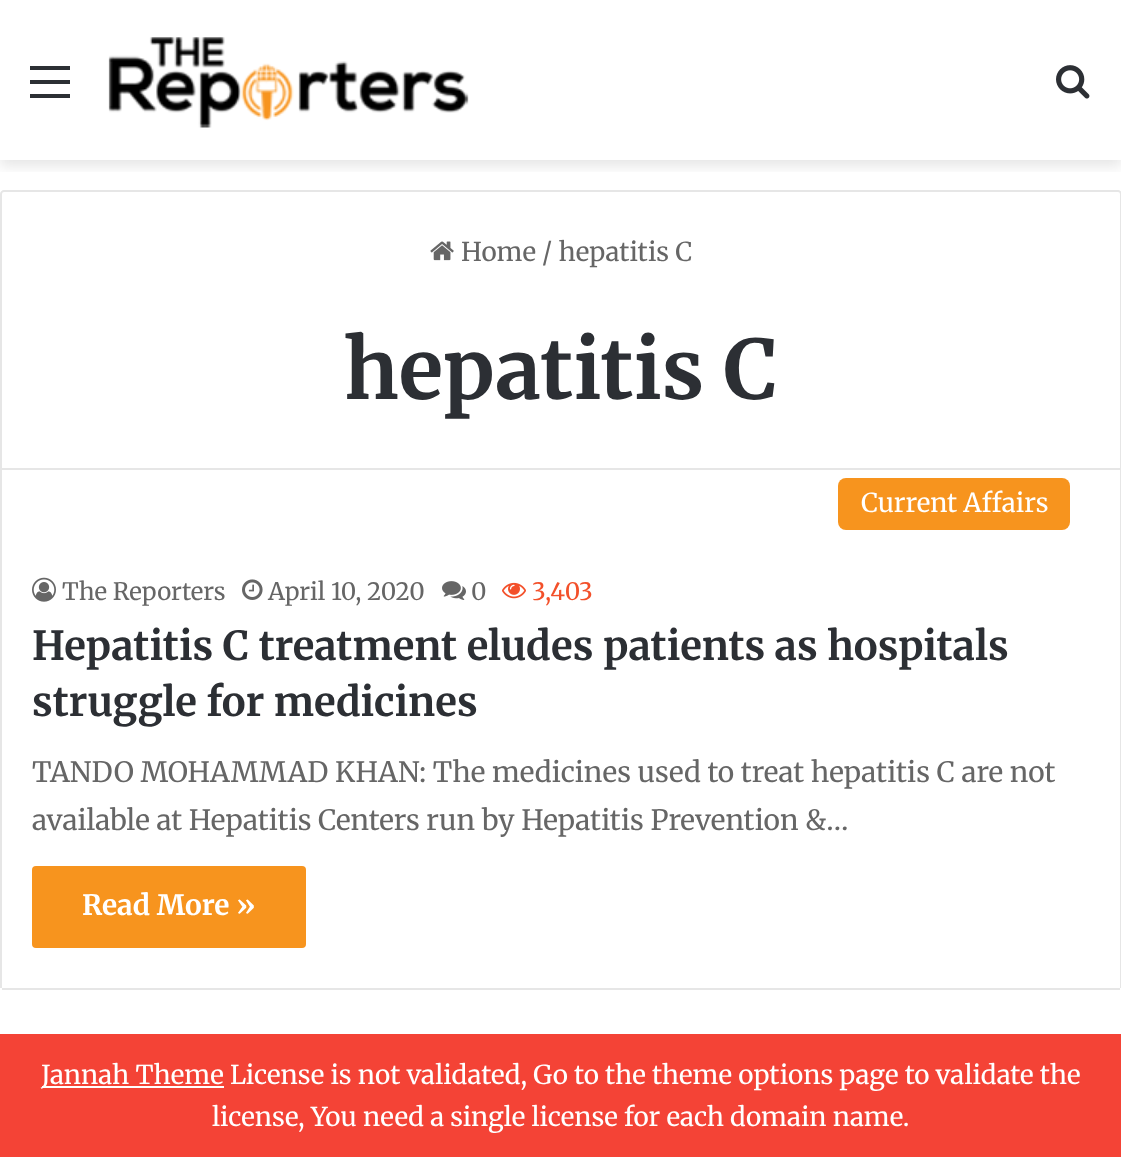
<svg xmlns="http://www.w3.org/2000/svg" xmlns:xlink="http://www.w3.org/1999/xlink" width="1121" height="1157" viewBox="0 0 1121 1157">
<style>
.cls-1{font:26px Merriweather;fill:#666666}
.cls-2{font:bold 82px Merriweather;fill:#2c2f34}
.cls-3{font:26px Merriweather;fill:#ffffff}
.cls-4{font:24px Merriweather;fill:#666666}
.cls-5{font:24px Merriweather;fill:#f3502a}
.cls-6{font:bold 40px Merriweather;fill:#2c2f34}
.cls-7{font:28px Merriweather;fill:#666666}
.cls-8{font:bold 28px Merriweather;fill:#ffffff}
</style>
<defs>
<clipPath id="clip1"><rect x="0" y="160" width="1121" height="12"/></clipPath>
</defs>
<rect width="100%" height="100%" fill="#ffffff"/>
<g clip-path="url(#clip1)">
<rect fill="#000000" fill-opacity="0.1" filter="blur(7px)" x="0" y="6" width="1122" height="160"/>
</g>
<rect fill="#2c2f34" x="30" y="80" width="40" height="4"/>
<rect fill="#2c2f34" x="30" y="66" width="40" height="4"/>
<rect fill="#2c2f34" x="30" y="94" width="40" height="4"/>
<image xlink:href="image0.png" x="108" y="37" width="361" height="91"/>
<image xlink:href="image1.png" x="1056" y="65" width="34" height="34"/>
<path fill="none" stroke="#e6e6e6" stroke-width="2" d="M4 191H1118C1119.5 191 1121 192.5 1121 194V469H1V194C1 192.5 2.5 191 4 191Z"/>
<image xlink:href="image2.png" x="430" y="241" width="24" height="20"/>
<rect fill="#e6e6e6" x="1120" y="470" width="1" height="518"/>
<rect fill="#e6e6e6" x="2" y="988" width="1118" height="2"/>
<rect fill="#e6e6e6" x="0" y="470" width="2" height="518"/>
<rect fill="#f7941e" x="838" y="478" width="232" height="52" rx="8"/>
<image xlink:href="image3.png" x="32" y="577" width="24" height="25"/>
<image xlink:href="image4.png" x="242" y="579" width="21" height="21"/>
<image xlink:href="image5.png" x="442" y="581" width="24" height="19"/>
<image xlink:href="image6.png" x="502" y="582" width="24" height="17"/>
<rect fill="#f7941e" x="32" y="866" width="274" height="82" rx="4"/>
<rect fill="#f44336" x="0" y="1034" width="1121" height="123"/>
<rect fill="#ffffff" x="42" y="1086" width="182" height="2"/>
<text class="cls-1" x="461" y="261">Home / hepatitis C</text>
<text class="cls-2" x="344" y="399">hepatitis C</text>
<text class="cls-3" x="861" y="512">Current Affairs</text>
<text class="cls-4" x="62" y="600">The Reporters</text>
<text class="cls-4" x="268" y="600">April 10, 2020</text>
<text class="cls-4" x="471" y="600">0</text>
<text class="cls-5" x="532" y="600">3,403</text>
<text class="cls-6"><tspan x="32" y="660">Hepatitis C treatment eludes patients as hospitals</tspan><tspan x="32" y="716">struggle for medicines</tspan></text>
<text class="cls-7"><tspan x="32" y="782">TANDO MOHAMMAD KHAN: The medicines used to treat hepatitis C are not</tspan><tspan x="32" y="830">available at Hepatitis Centers run by Hepatitis Prevention &amp;…</tspan></text>
<text class="cls-8" x="82" y="915">Read More »</text>
<text class="cls-3" x="41" y="1084">Jannah Theme License is not validated, Go to the theme options page to validate the</text>
<text class="cls-3" x="212" y="1126">license, You need a single license for each domain name.</text>
</svg>
